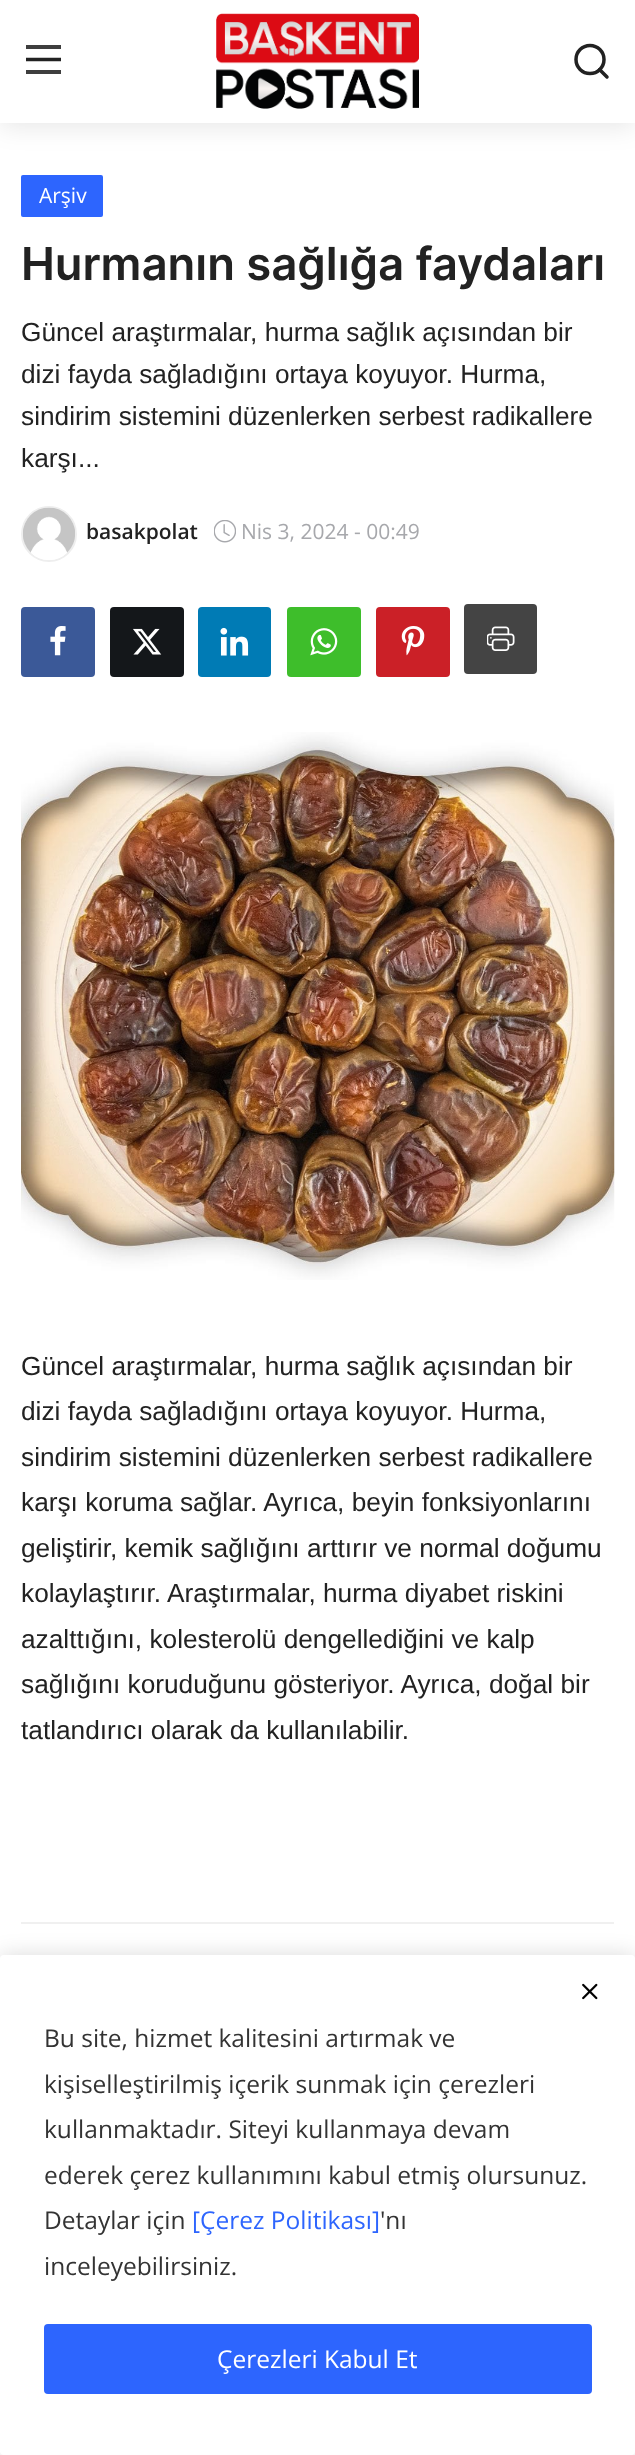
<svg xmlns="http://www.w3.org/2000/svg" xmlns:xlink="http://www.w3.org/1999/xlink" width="635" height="2455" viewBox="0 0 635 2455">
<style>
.cls-1{font:21px Open Sans;fill:#ffffff}
.cls-2{font:600 45.5px Inter;fill:#222222}
.cls-3{font:26.25px Liberation Sans;fill:#222222}
.cls-4{font:600 21px Open Sans;fill:#222222}
.cls-5{font:21px Open Sans;fill:#a7a8ac}
.cls-6{font:24.5px Open Sans;fill:#333333}
.cls-7{font:24.5px Open Sans;fill:#2d65fe}
.cls-8{font:24.5px Open Sans;fill:#ffffff}
</style>
<rect width="100%" height="100%" fill="#ffffff"/>
<rect fill="#000000" fill-opacity="0.1" filter="blur(13px)" x="0" y="4" width="635" height="122"/>
<rect fill="#ffffff" x="0" y="0" width="635" height="123"/>
<rect fill="#3e3e3e" x="26" y="45" width="35" height="4"/>
<path fill="none" stroke="#222222" stroke-width="3.5" d="M26 59.5H61"/>
<rect fill="#3e3e3e" x="26" y="70" width="35" height="4"/>
<image xlink:href="image0.png" x="216" y="13" width="203" height="96"/>
<circle fill="none" stroke="#222222" stroke-width="3.5" cx="590" cy="59.5" r="14"/>
<path fill="none" stroke="#222222" stroke-width="3.5" stroke-linecap="round" stroke-linejoin="round" d="M607 77L599.5 69.5"/>
<rect fill="#2d65fe" x="21" y="175" width="82" height="42" rx="2"/>
<circle fill="none" stroke="#eeeeee" stroke-width="2" cx="49" cy="534" r="27"/>
<image xlink:href="image1.png" x="23" y="507" width="52" height="53"/>
<image xlink:href="image2.png" x="214" y="520" width="22" height="23"/>
<rect fill="#3b5998" x="21" y="607" width="74" height="70" rx="4"/>
<image xlink:href="image3.png" x="50" y="626" width="16" height="30"/>
<rect fill="#14171a" x="110" y="607" width="74" height="70" rx="4"/>
<image xlink:href="image4.png" x="133" y="628" width="29" height="27"/>
<rect fill="#007bb5" x="198" y="607" width="73" height="70" rx="4"/>
<image xlink:href="image5.png" x="220" y="627" width="29" height="29"/>
<rect fill="#3ebe2b" x="287" y="607" width="74" height="70" rx="4"/>
<image xlink:href="image6.png" x="310" y="628" width="28" height="28"/>
<rect fill="#cb2027" x="376" y="607" width="74" height="70" rx="4"/>
<image xlink:href="image7.png" x="401" y="626" width="24" height="30"/>
<rect fill="#444444" x="464" y="604" width="73" height="70" rx="4"/>
<image xlink:href="image8.png" x="487" y="626" width="28" height="25"/>
<image xlink:href="image9.png" x="21" y="732" width="594" height="548"/>
<rect fill="#f0f0f0" x="21" y="1922" width="593" height="2"/>
<rect fill="#000000" fill-opacity="0.14" filter="blur(10.5px)" x="0" y="1955" width="635" height="500" rx="4"/>
<rect fill="#ffffff" x="0" y="1955" width="635" height="500" rx="4"/>
<image xlink:href="image10.png" x="582" y="1983" width="16" height="17"/>
<rect fill="#2d65fe" x="44" y="2324" width="548" height="70" rx="4"/>
<text class="cls-1" x="39" y="203">Arşiv</text>
<text class="cls-2" x="21" y="280">Hurmanın sağlığa faydaları</text>
<text class="cls-3"><tspan x="21" y="341">Güncel araştırmalar, hurma sağlık açısından bir</tspan><tspan x="21" y="383">dizi fayda sağladığını ortaya koyuyor. Hurma,</tspan><tspan x="21" y="425">sindirim sistemini düzenlerken serbest radikallere</tspan><tspan x="21" y="467">karşı...</tspan></text>
<text class="cls-4" x="86" y="539">basakpolat</text>
<text class="cls-5" x="241" y="539">Nis 3, 2024 - 00:49</text>
<text class="cls-3"><tspan x="21" y="1375">Güncel araştırmalar, hurma sağlık açısından bir</tspan><tspan x="21" y="1420">dizi fayda sağladığını ortaya koyuyor. Hurma,</tspan><tspan x="21" y="1466">sindirim sistemini düzenlerken serbest radikallere</tspan><tspan x="21" y="1511">karşı koruma sağlar. Ayrıca, beyin fonksiyonlarını</tspan><tspan x="21" y="1557">geliştirir, kemik sağlığını arttırır ve normal doğumu</tspan><tspan x="21" y="1602">kolaylaştırır. Araştırmalar, hurma diyabet riskini</tspan><tspan x="21" y="1648">azalttığını, kolesterolü dengellediğini ve kalp</tspan><tspan x="21" y="1693">sağlığını koruduğunu gösteriyor. Ayrıca, doğal bir</tspan><tspan x="21" y="1739">tatlandırıcı olarak da kullanılabilir.</tspan></text>
<text class="cls-6"><tspan x="44" y="2047">Bu site, hizmet kalitesini artırmak ve</tspan><tspan x="44" y="2093">kişiselleştirilmiş içerik sunmak için çerezleri</tspan><tspan x="44" y="2138">kullanmaktadır. Siteyi kullanmaya devam</tspan><tspan x="44" y="2184">ederek çerez kullanımını kabul etmiş olursunuz.</tspan><tspan x="44" y="2229">Detaylar için</tspan></text>
<text class="cls-7" x="192" y="2229">[Çerez Politikası]</text>
<text class="cls-6" x="380" y="2229">'nı</text>
<text class="cls-6" x="44" y="2275">inceleyebilirsiniz.</text>
<text class="cls-8" x="217" y="2368">Çerezleri Kabul Et</text>
</svg>
